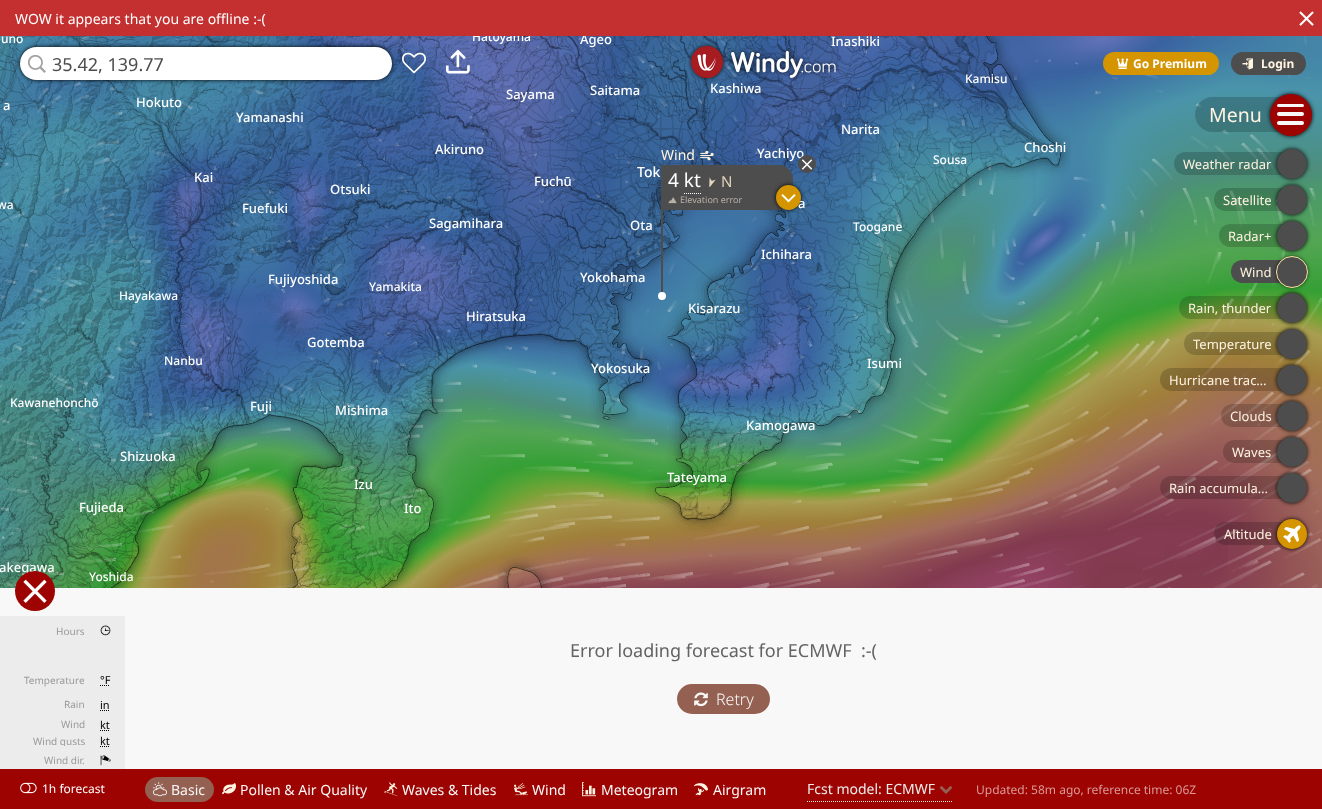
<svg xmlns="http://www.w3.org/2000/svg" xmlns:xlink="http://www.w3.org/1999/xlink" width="1322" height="809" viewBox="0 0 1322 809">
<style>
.cls-1{font:500 12px Noto Sans;fill:#ffffff}
.cls-2{font:500 13px Noto Sans;fill:#ffffff}
.cls-3{font:14px Noto Sans;fill:#ffffff}
.cls-4{font:500 14px Noto Sans;fill:#ffffff}
.cls-5{font:14px Noto Sans;fill:#fff3e1}
.cls-6{font:19px Noto Sans;fill:#ffffff}
.cls-7{font:15px Noto Sans;fill:#e4d5bd}
.cls-8{font:9px Noto Sans;fill:#b8b1a6}
.cls-9{font:bold 12px Noto Sans;fill:#ffffff}
.cls-10{font:bold 12px Noto Sans;fill:#fff3e1}
.cls-11{font:19.5px Noto Sans;fill:#fff3e1}
.cls-12{font:13px Noto Sans;fill:#fff3e1}
.cls-13{font:10px Noto Sans;fill:#999999}
.cls-14{font:11px Noto Sans;fill:#000000}
.cls-15{font:18px Noto Sans;fill:#636363}
.cls-16{font:300 16px Noto Sans;fill:#f8f8f8}
.cls-17{font:12px Noto Sans;fill:#ffffff}
.cls-18{font:14px Noto Sans;fill:#f8f8f8}
.cls-19{font:14px Noto Sans;fill:#ececec}
.cls-20{font:12px Noto Sans;fill:#d89a99}
.cls-21{font:18px Noto Sans;fill:#4d4d4d}
</style>
<defs>
<clipPath id="clip1"><rect x="0" y="736" width="85" height="10"/></clipPath>
</defs>
<rect width="100%" height="100%" fill="#ffffff"/>
<image xlink:href="image1.png" x="0" y="36" width="204" height="235"/>
<image xlink:href="image2.png" x="204" y="36" width="256" height="235"/>
<image xlink:href="image3.png" x="460" y="36" width="256" height="235"/>
<image xlink:href="image4.png" x="716" y="36" width="256" height="235"/>
<image xlink:href="image5.png" x="972" y="36" width="256" height="235"/>
<image xlink:href="image6.png" x="1228" y="36" width="94" height="235"/>
<image xlink:href="image7.png" x="0" y="271" width="204" height="256"/>
<image xlink:href="image8.png" x="204" y="271" width="256" height="256"/>
<image xlink:href="image9.png" x="460" y="271" width="256" height="256"/>
<image xlink:href="image10.png" x="716" y="271" width="256" height="256"/>
<image xlink:href="image11.png" x="972" y="271" width="256" height="256"/>
<image xlink:href="image12.png" x="1228" y="271" width="94" height="256"/>
<image xlink:href="image13.png" x="0" y="527" width="204" height="61"/>
<image xlink:href="image14.png" x="204" y="527" width="256" height="61"/>
<image xlink:href="image15.png" x="460" y="527" width="256" height="61"/>
<image xlink:href="image16.png" x="716" y="527" width="256" height="61"/>
<image xlink:href="image17.png" x="972" y="527" width="256" height="61"/>
<image xlink:href="image18.png" x="1228" y="527" width="94" height="61"/>
<image xlink:href="image19.png" x="0" y="36" width="1322" height="552"/>
<image xlink:href="image20.png" x="0" y="36" width="204" height="235"/>
<image xlink:href="image21.png" x="204" y="36" width="256" height="235"/>
<image xlink:href="image22.png" x="460" y="36" width="256" height="235"/>
<image xlink:href="image23.png" x="716" y="36" width="256" height="235"/>
<image xlink:href="image24.png" x="972" y="36" width="99" height="154"/>
<image xlink:href="image25.png" x="0" y="271" width="204" height="256"/>
<image xlink:href="image26.png" x="204" y="271" width="256" height="256"/>
<image xlink:href="image27.png" x="460" y="271" width="256" height="256"/>
<image xlink:href="image28.png" x="716" y="271" width="190" height="256"/>
<image xlink:href="image29.png" x="0" y="527" width="156" height="61"/>
<image xlink:href="image30.png" x="281" y="527" width="158" height="61"/>
<image xlink:href="image31.png" x="497" y="527" width="219" height="61"/>
<rect fill="#9b7a3a" x="716" y="527" width="2" height="1"/>
<image xlink:href="image32.png" x="700" y="150" width="14" height="11"/>
<rect fill="#4d4d4d" x="661" y="165" width="2" height="130"/>
<path fill="#4d4d4d" d="M663 165H779C786.5 165 793 171.5 793 179V196C793 203.5 786.5 210 779 210H663Z"/>
<image xlink:href="image34.png" x="709" y="177" width="7" height="10"/>
<path fill="none" stroke="#ffffff" stroke-dasharray="1 1" d="M684 193.5H701"/>
<rect fill="#000000" filter="blur(2px)" x="776" y="185" width="25" height="25" rx="12.5"/>
<image xlink:href="image36.png" x="668" y="197" width="9" height="7"/>
<circle fill="#ffffff" cx="662" cy="296" r="4"/>
<image xlink:href="image37.png" x="687" y="42" width="40" height="40"/>
<image xlink:href="image38.png" x="728" y="48" width="111" height="33"/>
<rect fill="#d49500" x="1103" y="52" width="116" height="23" rx="11.5"/>
<image xlink:href="image39.png" x="1117" y="58" width="12" height="11"/>
<rect fill="#4d4d4d" x="1231" y="52" width="75" height="23" rx="11.5"/>
<image xlink:href="image40.png" x="1242" y="58" width="11" height="12"/>
<path fill="#000000" fill-opacity="0.18" d="M1212.5 97H1290V132H1212.5C1203 132 1195 124 1195 114.5C1195 105 1203 97 1212.5 97Z"/>
<rect fill="#000000" filter="blur(2px)" x="1270" y="94" width="42" height="42" rx="21"/>
<circle fill="#9d0300" cx="1291" cy="115" r="21"/>
<rect fill="#f8f8f8" x="1277" y="104" width="27" height="3" rx="1.5"/>
<rect fill="#f8f8f8" x="1277" y="112" width="27" height="4" rx="2"/>
<rect fill="#f8f8f8" x="1277" y="121" width="27" height="4" rx="2"/>
<path fill="#000000" fill-opacity="0.18" d="M1185.5 152H1290V175H1185.5C1179 175 1174 170 1174 163.5C1174 157 1179 152 1185.5 152Z"/>
<rect fill="#000000" filter="blur(2px)" x="1277" y="149" width="30" height="30" rx="15"/>
<circle fill="#4d4d4d" cx="1292" cy="164" r="15"/>
<path fill="#000000" fill-opacity="0.18" d="M1225.5 188H1290V211H1225.5C1219 211 1214 206 1214 199.5C1214 193 1219 188 1225.5 188Z"/>
<rect fill="#000000" filter="blur(2px)" x="1277" y="185" width="30" height="30" rx="15"/>
<circle fill="#4d4d4d" cx="1292" cy="200" r="15"/>
<path fill="#000000" fill-opacity="0.18" d="M1230.5 224H1290V247H1230.5C1224 247 1219 242 1219 235.5C1219 229 1224 224 1230.5 224Z"/>
<rect fill="#000000" filter="blur(2px)" x="1277" y="221" width="30" height="30" rx="15"/>
<circle fill="#4d4d4d" cx="1292" cy="236" r="15"/>
<path fill="#4d4d4d" d="M1242.5 260H1290V283H1242.5C1236 283 1231 278 1231 271.5C1231 265 1236 260 1242.5 260Z"/>
<rect fill="#000000" filter="blur(2px)" x="1277" y="257" width="30" height="30" rx="15"/>
<circle fill="#4d4d4d" stroke="#ffe3a1" cx="1292" cy="272" r="15.5"/>
<path fill="#000000" fill-opacity="0.18" d="M1190.5 296H1290V319H1190.5C1184 319 1179 314 1179 307.5C1179 301 1184 296 1190.5 296Z"/>
<rect fill="#000000" filter="blur(2px)" x="1277" y="293" width="30" height="30" rx="15"/>
<circle fill="#4d4d4d" cx="1292" cy="308" r="15"/>
<path fill="#000000" fill-opacity="0.18" d="M1195.5 332H1290V355H1195.5C1189 355 1184 350 1184 343.5C1184 337 1189 332 1195.5 332Z"/>
<rect fill="#000000" filter="blur(2px)" x="1277" y="329" width="30" height="30" rx="15"/>
<circle fill="#4d4d4d" cx="1292" cy="344" r="15"/>
<path fill="#000000" fill-opacity="0.18" d="M1171.5 368H1290V391H1171.5C1165 391 1160 386 1160 379.5C1160 373 1165 368 1171.5 368Z"/>
<rect fill="#000000" filter="blur(2px)" x="1277" y="365" width="30" height="30" rx="15"/>
<circle fill="#4d4d4d" cx="1292" cy="380" r="15"/>
<path fill="#000000" fill-opacity="0.18" d="M1232.5 404H1290V427H1232.5C1226 427 1221 422 1221 415.5C1221 409 1226 404 1232.5 404Z"/>
<rect fill="#000000" filter="blur(2px)" x="1277" y="401" width="30" height="30" rx="15"/>
<circle fill="#4d4d4d" cx="1292" cy="416" r="15"/>
<path fill="#000000" fill-opacity="0.18" d="M1234.5 440H1290V463H1234.5C1228 463 1223 458 1223 451.5C1223 445 1228 440 1234.5 440Z"/>
<rect fill="#000000" filter="blur(2px)" x="1277" y="437" width="30" height="30" rx="15"/>
<circle fill="#4d4d4d" cx="1292" cy="452" r="15"/>
<path fill="#000000" fill-opacity="0.18" d="M1171.5 476H1290V499H1171.5C1165 499 1160 494 1160 487.5C1160 481 1165 476 1171.5 476Z"/>
<rect fill="#000000" filter="blur(2px)" x="1277" y="473" width="30" height="30" rx="15"/>
<circle fill="#4d4d4d" cx="1292" cy="488" r="15"/>
<path fill="#000000" fill-opacity="0.18" d="M1225.5 522H1290V545H1225.5C1219 545 1214 540 1214 533.5C1214 527 1219 522 1225.5 522Z"/>
<rect fill="#000000" filter="blur(2px)" x="1277" y="519" width="30" height="30" rx="15"/>
<circle fill="#d49500" cx="1292" cy="534" r="15"/>
<image xlink:href="image41.png" x="1283" y="525" width="18" height="18"/>
<rect fill="#f8f8f8" x="125" y="588" width="1197" height="181"/>
<rect fill="#ececec" x="0" y="616" width="125" height="153"/>
<rect fill="#f8f8f8" x="0" y="588" width="125" height="28"/>
<image xlink:href="image43.png" x="100" y="625" width="11" height="11"/>
<path fill="none" stroke="#000000" stroke-dasharray="1 1" d="M100 685.5H110"/>
<path fill="none" stroke="#000000" stroke-dasharray="1 1" d="M100 710.5H110"/>
<path fill="none" stroke="#000000" stroke-dasharray="1 1" d="M100 730.5H110"/>
<path fill="none" stroke="#000000" stroke-dasharray="1 1" d="M100 746.5H110"/>
<image xlink:href="image44.png" x="100" y="755" width="11" height="11"/>
<rect fill="#946051" x="677" y="684" width="93" height="30" rx="15"/>
<image xlink:href="image45.png" x="694" y="692" width="14" height="15"/>
<rect fill="#9d0300" x="0" y="769" width="1322" height="40"/>
<image xlink:href="image46.png" x="20" y="782" width="17" height="12"/>
<rect fill="#946051" x="145" y="777" width="69" height="25" rx="12.5"/>
<image xlink:href="image47.png" x="153" y="782" width="14" height="15"/>
<image xlink:href="image48.png" x="222" y="783" width="14" height="12"/>
<image xlink:href="image49.png" x="384" y="782" width="14" height="14"/>
<image xlink:href="image50.png" x="514" y="783" width="14" height="13"/>
<image xlink:href="image51.png" x="582" y="782" width="14" height="15"/>
<image xlink:href="image52.png" x="694" y="783" width="14" height="13"/>
<path fill="none" stroke="#ececec" stroke-dasharray="1 1" d="M807 801.5H953"/>
<image xlink:href="image53.png" x="939" y="786" width="14" height="8"/>
<rect fill="#000000" filter="blur(2px)" x="20" y="47" width="372" height="33" rx="16.5"/>
<rect fill="#ffffff" x="20" y="47" width="372" height="33" rx="16.5"/>
<image xlink:href="image54.png" x="28" y="55" width="18" height="18"/>
<image xlink:href="image55.png" x="402" y="52" width="24" height="22"/>
<image xlink:href="image56.png" x="446" y="49" width="24" height="25"/>
<text class="cls-1" x="1" y="43">uno</text>
<text class="cls-2" x="3" y="110">a</text>
<text class="cls-2" x="136" y="107">Hokuto</text>
<text class="cls-2" x="194" y="182">Kai</text>
<text class="cls-1" x="-3" y="209">wa</text>
<text class="cls-2" x="236" y="122">Yamanashi</text>
<text class="cls-2" x="435" y="154">Akiruno</text>
<text class="cls-2" x="330" y="194">Otsuki</text>
<text class="cls-2" x="242" y="213">Fuefuki</text>
<text class="cls-1" x="472" y="41">Hatoyama</text>
<text class="cls-2" x="580" y="44">Ageo</text>
<rect fill="#c42f2f" x="0" y="0" width="1322" height="36"/>
<image xlink:href="image0.png" x="1299" y="11" width="15" height="15"/>
<text class="cls-3" x="15" y="24">WOW it appears that you are offline :-(</text>
<text class="cls-2" x="506" y="99">Sayama</text>
<text class="cls-2" x="590" y="95">Saitama</text>
<text class="cls-4" x="637" y="177">Tok</text>
<text class="cls-2" x="534" y="186">Fuchū</text>
<text class="cls-2" x="429" y="228">Sagamihara</text>
<text class="cls-2" x="630" y="230">Ota</text>
<text class="cls-2" x="831" y="46">Inashiki</text>
<text class="cls-2" x="710" y="93">Kashiwa</text>
<text class="cls-2" x="841" y="134">Narita</text>
<text class="cls-2" x="757" y="158">Yachiyo</text>
<text class="cls-1" x="933" y="164">Sousa</text>
<text class="cls-2" x="798" y="208">a</text>
<text class="cls-1" x="853" y="231">Toogane</text>
<text class="cls-2" x="761" y="259">Ichihara</text>
<text class="cls-1" x="965" y="83">Kamisu</text>
<text class="cls-2" x="1024" y="152">Choshi</text>
<text class="cls-1" x="119" y="300">Hayakawa</text>
<text class="cls-1" x="164" y="365">Nanbu</text>
<text class="cls-1" x="10" y="407">Kawanehonchō</text>
<text class="cls-2" x="120" y="461">Shizuoka</text>
<text class="cls-2" x="79" y="512">Fujieda</text>
<text class="cls-2" x="268" y="284">Fujiyoshida</text>
<text class="cls-1" x="369" y="291">Yamakita</text>
<text class="cls-2" x="307" y="347">Gotemba</text>
<text class="cls-2" x="250" y="411">Fuji</text>
<text class="cls-2" x="335" y="415">Mishima</text>
<text class="cls-2" x="354" y="489">Izu</text>
<text class="cls-2" x="404" y="513">Ito</text>
<text class="cls-2" x="580" y="282">Yokohama</text>
<text class="cls-2" x="688" y="313">Kisarazu</text>
<text class="cls-2" x="466" y="321">Hiratsuka</text>
<text class="cls-2" x="591" y="373">Yokosuka</text>
<text class="cls-2" x="667" y="482">Tateyama</text>
<text class="cls-2" x="867" y="368">Isumi</text>
<text class="cls-2" x="746" y="430">Kamogawa</text>
<text class="cls-2" x="-1" y="572">akegawa</text>
<text class="cls-1" x="89" y="581">Yoshida</text>
<text class="cls-5" x="661" y="160">Wind</text>
<circle fill="#4d4d4d" cx="807" cy="164" r="9"/>
<image xlink:href="image33.png" x="801" y="159" width="12" height="11"/>
<text class="cls-6" x="668" y="187">4 kt</text>
<text class="cls-7" x="721" y="187">N</text>
<circle fill="#d49500" cx="788.5" cy="197.5" r="12.5"/>
<image xlink:href="image35.png" x="781" y="194" width="15" height="9"/>
<text class="cls-8" x="680" y="203">Elevation error</text>
<text class="cls-9" x="1133" y="68">Go Premium</text>
<text class="cls-10" x="1261" y="68">Login</text>
<text class="cls-11" x="1209" y="122">Menu</text>
<text class="cls-12" x="1183" y="169">Weather radar</text>
<text class="cls-12" x="1223" y="205">Satellite</text>
<text class="cls-12" x="1228" y="241">Radar+</text>
<text class="cls-12" x="1240" y="277">Wind</text>
<text class="cls-12" x="1188" y="313">Rain, thunder</text>
<text class="cls-12" x="1193" y="349">Temperature</text>
<text class="cls-12" x="1169" y="385">Hurricane trac…</text>
<text class="cls-12" x="1230" y="421">Clouds</text>
<text class="cls-12" x="1232" y="457">Waves</text>
<text class="cls-12" x="1169" y="493">Rain accumula…</text>
<text class="cls-12" x="1224" y="539">Altitude</text>
<circle fill="#9d0300" cx="35" cy="591" r="20"/>
<image xlink:href="image42.png" x="23" y="579" width="24" height="24"/>
<text class="cls-13" x="56" y="635">Hours</text>
<text class="cls-13" x="24" y="684">Temperature</text>
<text class="cls-14" x="100" y="684">°F</text>
<text class="cls-13" x="64" y="708">Rain</text>
<text class="cls-14" x="100" y="709">in</text>
<text class="cls-13" x="61" y="728">Wind</text>
<text class="cls-14" x="100" y="729">kt</text>
<g clip-path="url(#clip1)">
<text class="cls-13" x="33" y="745">Wind gusts</text>
</g>
<text class="cls-14" x="100" y="745">kt</text>
<text class="cls-13" x="44" y="764">Wind dir.</text>
<text class="cls-15" xml:space="preserve" x="570" y="657">Error loading forecast for ECMWF  :-(</text>
<text class="cls-16" x="716" y="705">Retry</text>
<text class="cls-17" x="42" y="793">1h forecast</text>
<text class="cls-18" x="171" y="795">Basic</text>
<text class="cls-18" x="240" y="795">Pollen &amp; Air Quality</text>
<text class="cls-18" x="402" y="795">Waves &amp; Tides</text>
<text class="cls-18" x="532" y="795">Wind</text>
<text class="cls-18" x="601" y="795">Meteogram</text>
<text class="cls-18" x="713" y="795">Airgram</text>
<text class="cls-19" x="807" y="794">Fcst model: ECMWF</text>
<text class="cls-20" x="976" y="794">Updated: 58m ago, reference time: 06Z</text>
<text class="cls-21" x="52" y="71">35.42, 139.77</text>
</svg>
